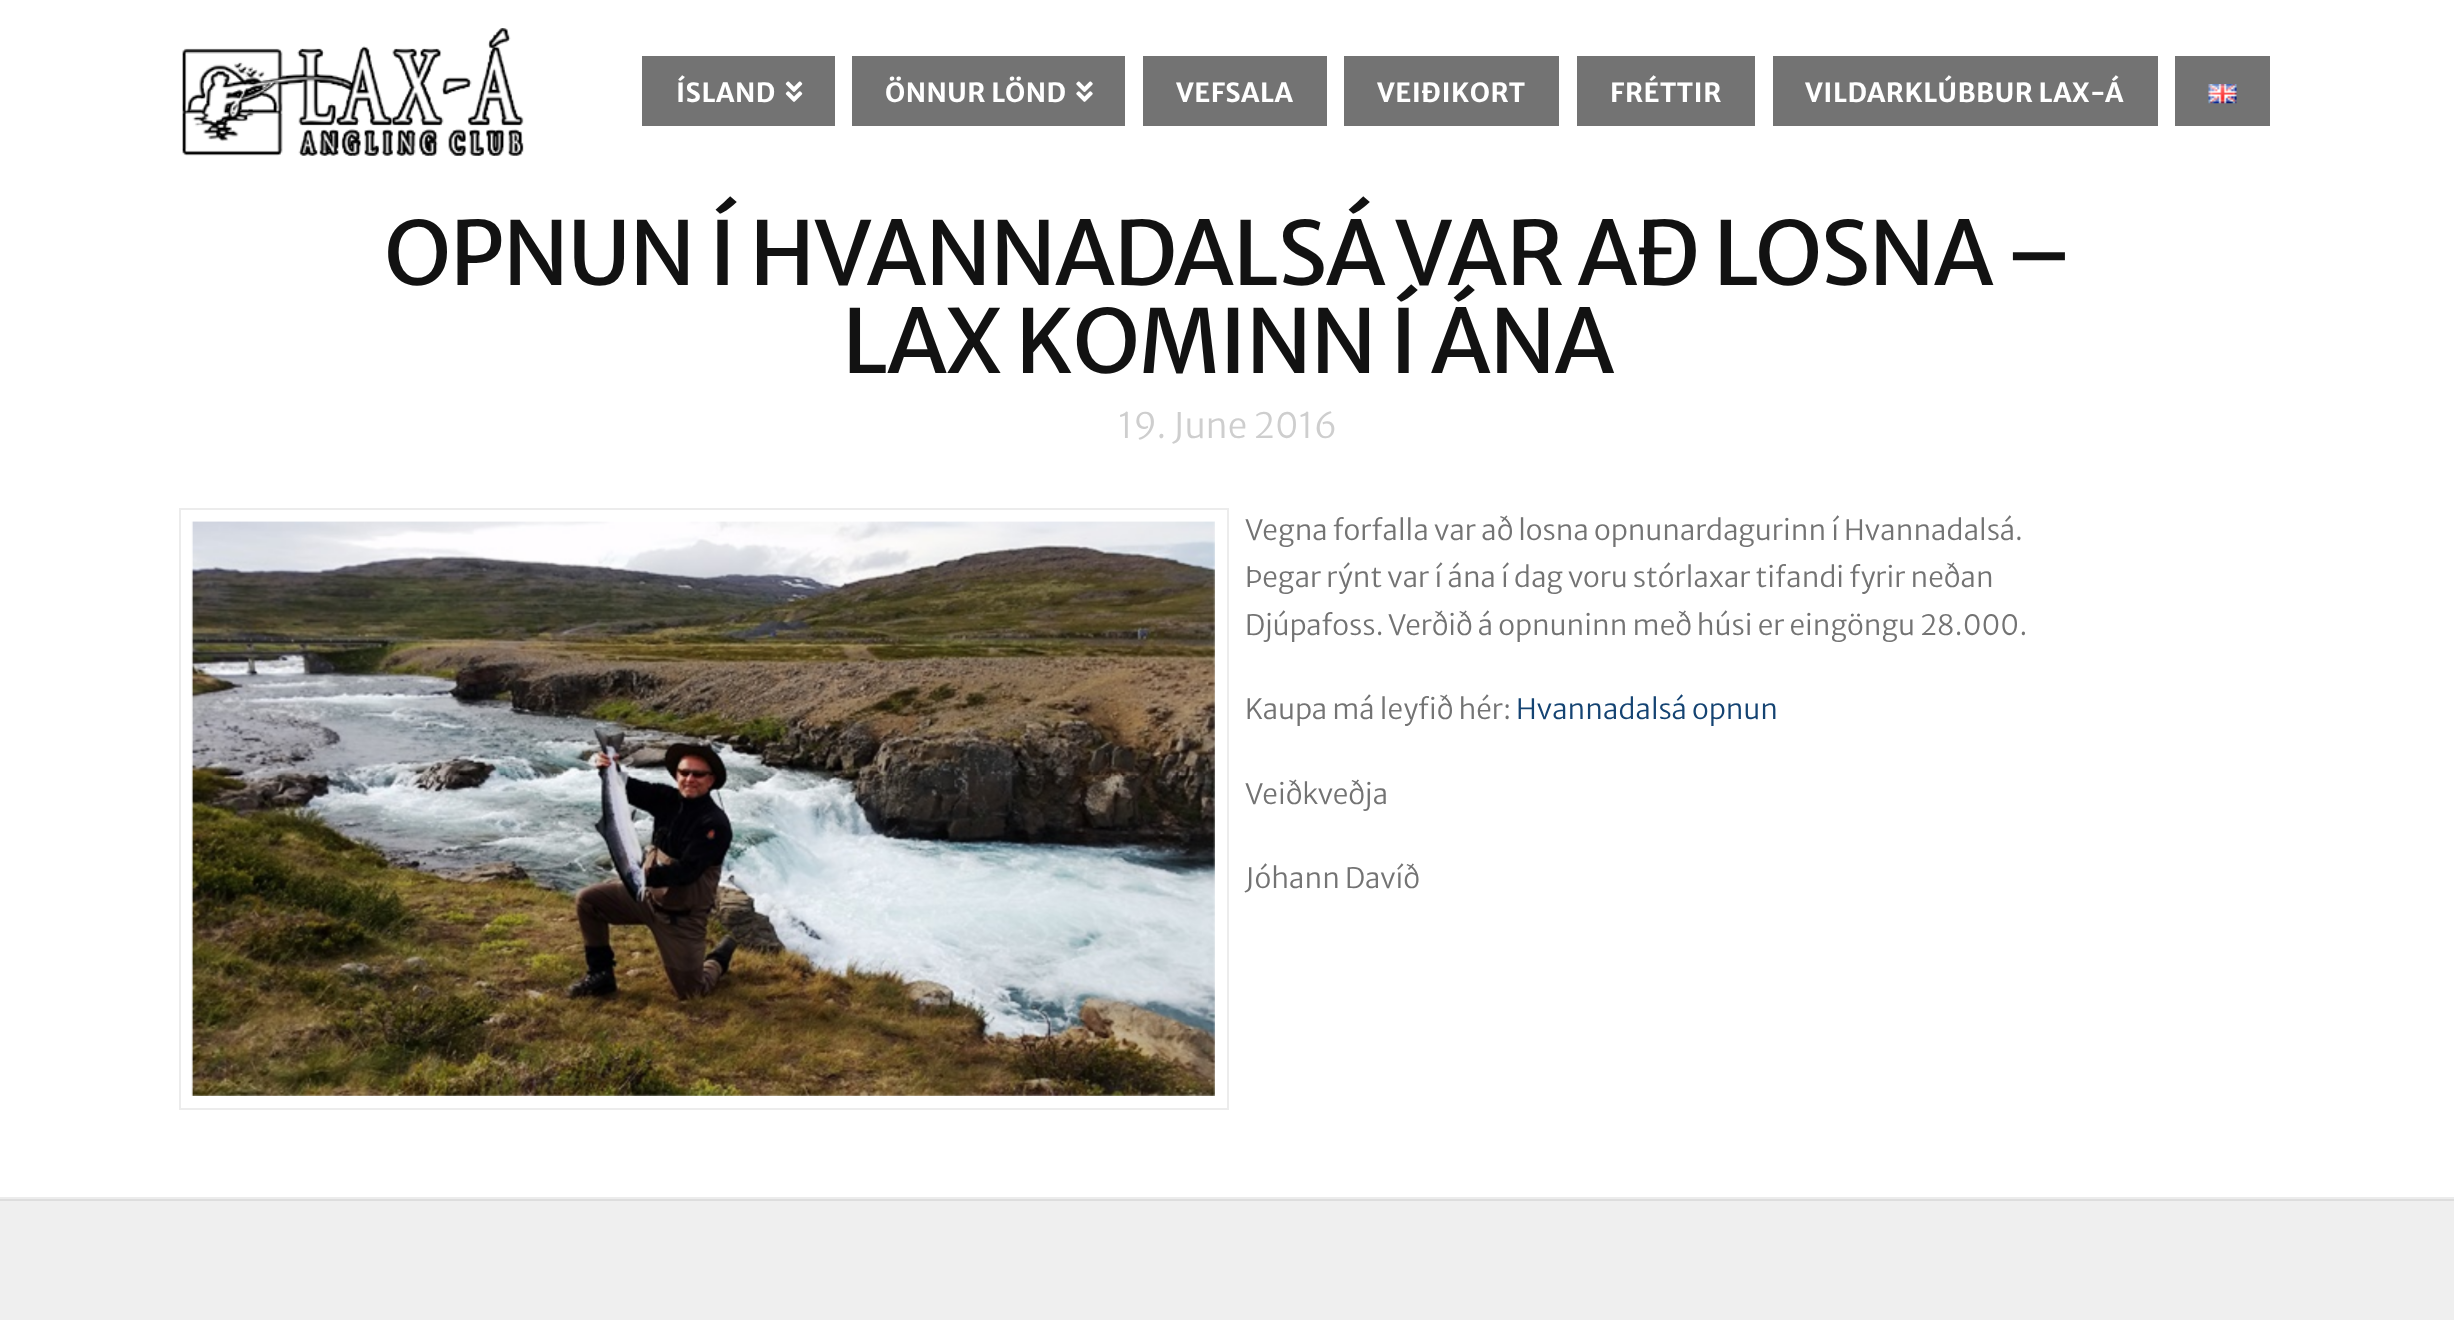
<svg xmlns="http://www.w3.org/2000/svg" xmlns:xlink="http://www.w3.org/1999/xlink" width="2454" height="1320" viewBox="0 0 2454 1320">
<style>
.cls-1{font:bold 26.25px Merriweather Sans;letter-spacing:0.5px;fill:#ffffff}
.cls-2{font:87.9px Merriweather Sans;letter-spacing:-1.5px;fill:#121212}
.cls-3{font:300 35px Merriweather Sans;fill:#cecece}
.cls-4{font:300 28px Merriweather Sans;fill:#737373}
.cls-5{font:300 28px Merriweather Sans;fill:#144372}
</style>
<rect width="100%" height="100%" fill="#ffffff"/>
<image xlink:href="image0.png" x="182" y="28" width="342" height="128"/>
<rect fill="#737373" x="642" y="56" width="193" height="70"/>
<image xlink:href="image1.png" x="785" y="81" width="18" height="21"/>
<rect fill="#737373" x="852" y="56" width="273" height="70"/>
<image xlink:href="image2.png" x="1076" y="81" width="17" height="21"/>
<rect fill="#737373" x="1143" y="56" width="184" height="70"/>
<rect fill="#737373" x="1344" y="56" width="215" height="70"/>
<rect fill="#737373" x="1577" y="56" width="178" height="70"/>
<rect fill="#737373" x="1773" y="56" width="385" height="70"/>
<rect fill="#737373" x="2175" y="56" width="95" height="70"/>
<image xlink:href="image3.png" x="2208" y="84" width="29" height="20"/>
<rect fill="#ececec" x="0" y="1197" width="2454" height="2"/>
<rect fill="none" stroke="#ececec" stroke-width="2" x="180" y="509" width="1048" height="600"/>
<image xlink:href="image4.png" x="191" y="521" width="1024" height="575"/>
<rect fill="#efefef" x="0" y="1201" width="2454" height="119"/>
<rect fill="#dddddd" x="0" y="1199" width="2454" height="2"/>
<text class="cls-1" x="676" y="102">ÍSLAND</text>
<text class="cls-1" x="885" y="102">ÖNNUR LÖND</text>
<text class="cls-1" x="1176" y="102">VEFSALA</text>
<text class="cls-1" x="1377" y="102">VEIÐIKORT</text>
<text class="cls-1" x="1610" y="102">FRÉTTIR</text>
<text class="cls-1" x="1805" y="102">VILDARKLÚBBUR LAX-Á</text>
<text class="cls-2" x="384" y="285">OPNUN Í HVANNADALSÁ VAR AÐ LOSNA –</text>
<text class="cls-2" x="842" y="373">LAX KOMINN Í ÁNA</text>
<text class="cls-3" x="1118" y="438">19. June 2016</text>
<text class="cls-4"><tspan x="1245" y="540">Vegna forfalla var að losna opnunardagurinn í Hvannadalsá.</tspan><tspan x="1245" y="587">Þegar rýnt var í ána í dag voru stórlaxar tifandi fyrir neðan</tspan><tspan x="1245" y="635">Djúpafoss. Verðið á opnuninn með húsi er eingöngu 28.000.</tspan></text>
<text class="cls-4" x="1245" y="719">Kaupa má leyfið hér:</text>
<text class="cls-5" x="1516" y="719">Hvannadalsá opnun</text>
<text class="cls-4" x="1245" y="804">Veiðkveðja</text>
<text class="cls-4" x="1245" y="888">Jóhann Davíð</text>
</svg>
